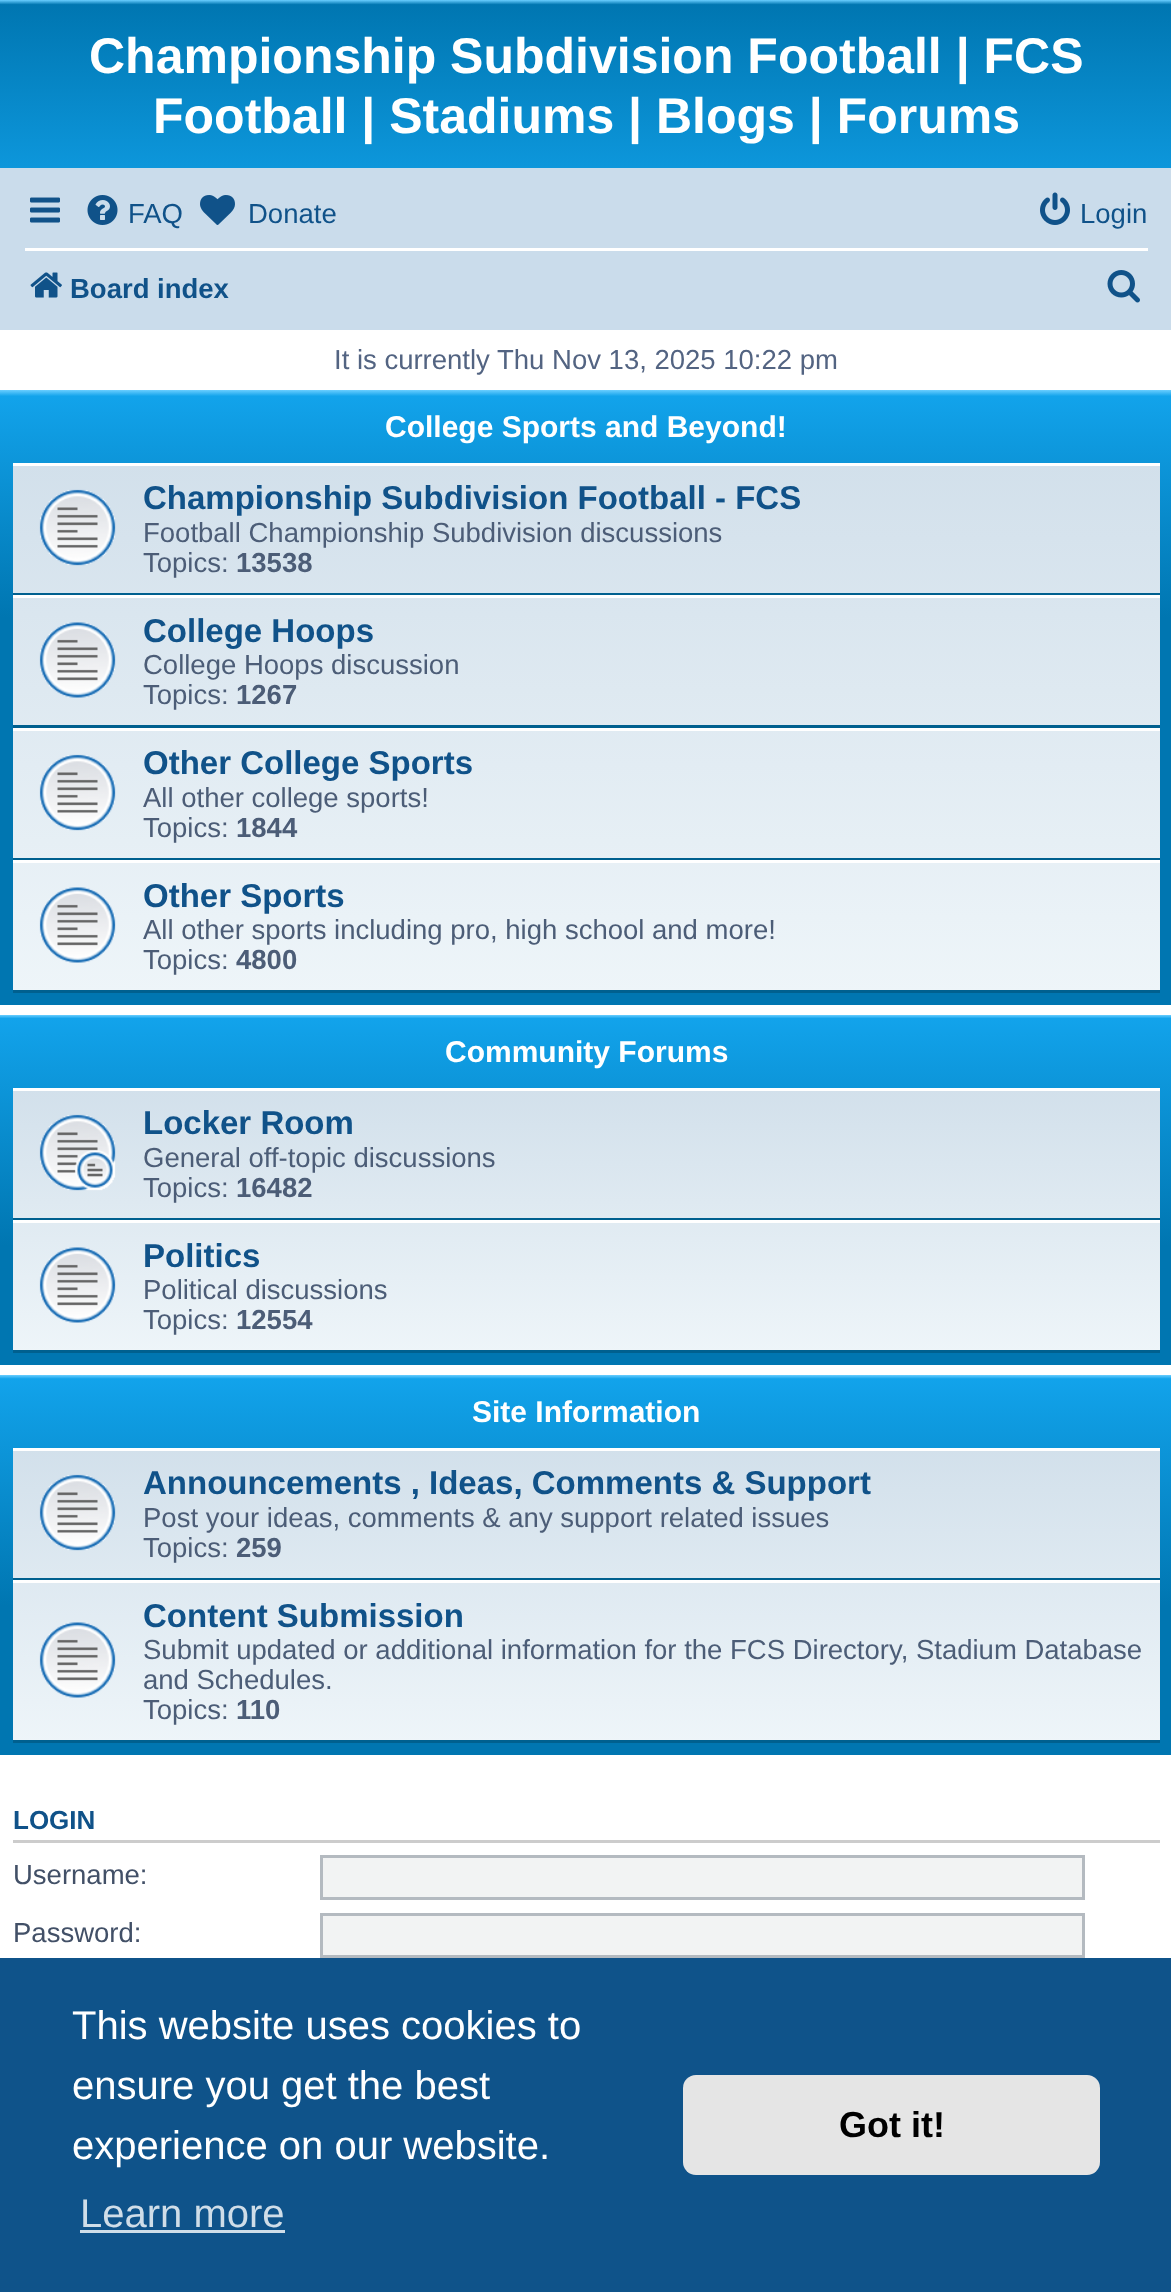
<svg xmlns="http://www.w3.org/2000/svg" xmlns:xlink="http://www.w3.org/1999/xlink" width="1171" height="2292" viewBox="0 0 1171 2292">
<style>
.cls-1{font:bold 50px Liberation Sans;fill:#ffffff}
.cls-2{font:27.5px Liberation Sans;fill:#105289}
.cls-3{font:bold 27.5px Liberation Sans;fill:#105289}
.cls-4{font:27.5px Liberation Sans;fill:#536482}
.cls-5{font:bold 30px Liberation Sans;fill:#ffffff}
.cls-6{font:bold 33px Liberation Sans;fill:#105289}
.cls-7{font:27.5px Liberation Sans;fill:#4c5d77}
.cls-8{font:bold 27.5px Liberation Sans;fill:#4c5d77}
.cls-9{font:bold 26px Liberation Sans;fill:#105289}
.cls-10{font:27.5px Liberation Sans;fill:#425067}
.cls-11{font:40px Liberation Sans;fill:#ffffff}
.cls-12{font:40px Liberation Sans;fill:#cfdde8}
.cls-13{font:bold 36px Liberation Sans;fill:#000000}
</style>
<defs>
<linearGradient id="g1" gradientUnits="userSpaceOnUse" x1="586" y1="0" x2="586" y2="230"><stop offset="0" stop-color="#6aceff"/><stop offset="0.02" stop-color="#0076b1"/><stop offset="1" stop-color="#12a3eb"/></linearGradient>
<linearGradient id="g2" gradientUnits="userSpaceOnUse" x1="586" y1="390" x2="586" y2="1005"><stop offset="0" stop-color="#6aceff"/><stop offset="0.01" stop-color="#12a3eb"/><stop offset="0.37" stop-color="#0076b1"/><stop offset="1" stop-color="#0076b1"/></linearGradient>
<linearGradient id="g3" gradientUnits="userSpaceOnUse" x1="586" y1="462" x2="586" y2="993"><stop offset="0" stop-color="#d2e0eb"/><stop offset="1" stop-color="#eef5f9"/></linearGradient>
<linearGradient id="g4" gradientUnits="userSpaceOnUse" x1="586" y1="1015" x2="586" y2="1365"><stop offset="0" stop-color="#6aceff"/><stop offset="0.01" stop-color="#12a3eb"/><stop offset="0.66" stop-color="#0076b1"/><stop offset="1" stop-color="#0076b1"/></linearGradient>
<linearGradient id="g5" gradientUnits="userSpaceOnUse" x1="586" y1="1088" x2="586" y2="1353"><stop offset="0" stop-color="#d2e0eb"/><stop offset="1" stop-color="#eef5f9"/></linearGradient>
<linearGradient id="g6" gradientUnits="userSpaceOnUse" x1="586" y1="1375" x2="586" y2="1755"><stop offset="0" stop-color="#6aceff"/><stop offset="0.01" stop-color="#12a3eb"/><stop offset="0.61" stop-color="#0076b1"/><stop offset="1" stop-color="#0076b1"/></linearGradient>
<linearGradient id="g7" gradientUnits="userSpaceOnUse" x1="586" y1="1448" x2="586" y2="1743"><stop offset="0" stop-color="#d2e0eb"/><stop offset="1" stop-color="#eef5f9"/></linearGradient>
</defs>
<rect width="100%" height="100%" fill="#ffffff"/>
<rect fill="url(#g1)" x="0" y="0" width="1171" height="168"/>
<rect fill="#cadceb" x="0" y="168" width="1171" height="162"/>
<image xlink:href="image0.png" x="30" y="197" width="30" height="26"/>
<image xlink:href="image1.png" x="87" y="195" width="31" height="30"/>
<image xlink:href="image2.png" x="200" y="195" width="35" height="30"/>
<image xlink:href="image3.png" x="1040" y="192" width="30" height="33"/>
<rect fill="#ffffff" x="25" y="248" width="1123" height="3"/>
<image xlink:href="image4.png" x="30" y="272" width="32" height="26"/>
<image xlink:href="image5.png" x="1107" y="270" width="33" height="33"/>
<rect fill="url(#g2)" x="0" y="390" width="1171" height="615"/>
<rect fill="url(#g3)" x="13" y="466" width="1147" height="524"/>
<rect fill="#ffffff" x="13" y="463" width="1147" height="3"/>
<rect fill="#00608f" x="13" y="593" width="1147" height="2"/>
<image xlink:href="image6.png" x="39" y="489" width="77" height="77"/>
<rect fill="#ffffff" x="13" y="595" width="1147" height="3"/>
<rect fill="#00608f" x="13" y="725" width="1147" height="3"/>
<image xlink:href="image7.png" x="39" y="622" width="77" height="76"/>
<rect fill="#ffffff" x="13" y="728" width="1147" height="3"/>
<rect fill="#00608f" x="13" y="858" width="1147" height="2"/>
<image xlink:href="image8.png" x="39" y="754" width="77" height="77"/>
<rect fill="#ffffff" x="13" y="860" width="1147" height="3"/>
<rect fill="#00608f" x="13" y="990" width="1147" height="3"/>
<image xlink:href="image9.png" x="39" y="887" width="77" height="76"/>
<rect fill="url(#g4)" x="0" y="1015" width="1171" height="350"/>
<rect fill="url(#g5)" x="13" y="1091" width="1147" height="259"/>
<rect fill="#ffffff" x="13" y="1088" width="1147" height="3"/>
<rect fill="#00608f" x="13" y="1218" width="1147" height="2"/>
<image xlink:href="image10.png" x="39" y="1114" width="77" height="77"/>
<rect fill="#ffffff" x="13" y="1220" width="1147" height="3"/>
<rect fill="#00608f" x="13" y="1350" width="1147" height="3"/>
<image xlink:href="image11.png" x="39" y="1247" width="77" height="76"/>
<rect fill="url(#g6)" x="0" y="1375" width="1171" height="380"/>
<rect fill="url(#g7)" x="13" y="1451" width="1147" height="289"/>
<rect fill="#ffffff" x="13" y="1448" width="1147" height="3"/>
<rect fill="#00608f" x="13" y="1578" width="1147" height="2"/>
<image xlink:href="image12.png" x="39" y="1474" width="77" height="77"/>
<rect fill="#ffffff" x="13" y="1580" width="1147" height="3"/>
<rect fill="#00608f" x="13" y="1740" width="1147" height="3"/>
<image xlink:href="image13.png" x="39" y="1622" width="77" height="76"/>
<rect fill="#cccccc" x="13" y="1840" width="1147" height="3"/>
<rect fill="#f2f3f3" stroke="#b4bac0" stroke-width="3" x="321.5" y="1856.5" width="762" height="42"/>
<rect fill="#f2f3f3" stroke="#b4bac0" stroke-width="3" x="321.5" y="1914.5" width="762" height="42"/>
<rect fill="#0f538a" x="0" y="1958" width="1171" height="334"/>
<rect fill="#cfdde8" x="80" y="2230" width="205" height="3"/>
<rect fill="#e5e5e5" x="683" y="2075" width="417" height="100" rx="13"/>
<text class="cls-1" x="89" y="73">Championship Subdivision Football | FCS</text>
<text class="cls-1" x="153" y="133">Football | Stadiums | Blogs | Forums</text>
<text class="cls-2" x="128" y="223">FAQ</text>
<text class="cls-2" x="248" y="223">Donate</text>
<text class="cls-2" x="1080" y="223">Login</text>
<text class="cls-3" x="70" y="298">Board index</text>
<text class="cls-4" x="334" y="369">It is currently Thu Nov 13, 2025 10:22 pm</text>
<text class="cls-5" x="385" y="437">College Sports and Beyond!</text>
<text class="cls-6" x="143" y="509">Championship Subdivision Football - FCS</text>
<text class="cls-7"><tspan x="143" y="542">Football Championship Subdivision discussions</tspan><tspan x="143" y="572">Topics:</tspan></text>
<text class="cls-8" x="236" y="572">13538</text>
<text class="cls-6" x="143" y="642">College Hoops</text>
<text class="cls-7"><tspan x="143" y="674">College Hoops discussion</tspan><tspan x="143" y="704">Topics:</tspan></text>
<text class="cls-8" x="236" y="704">1267</text>
<text class="cls-6" x="143" y="774">Other College Sports</text>
<text class="cls-7"><tspan x="143" y="807">All other college sports!</tspan><tspan x="143" y="837">Topics:</tspan></text>
<text class="cls-8" x="236" y="837">1844</text>
<text class="cls-6" x="143" y="907">Other Sports</text>
<text class="cls-7"><tspan x="143" y="939">All other sports including pro, high school and more!</tspan><tspan x="143" y="969">Topics:</tspan></text>
<text class="cls-8" x="236" y="969">4800</text>
<text class="cls-5" x="445" y="1062">Community Forums</text>
<text class="cls-6" x="143" y="1134">Locker Room</text>
<text class="cls-7"><tspan x="143" y="1167">General off-topic discussions</tspan><tspan x="143" y="1197">Topics:</tspan></text>
<text class="cls-8" x="236" y="1197">16482</text>
<text class="cls-6" x="143" y="1267">Politics</text>
<text class="cls-7"><tspan x="143" y="1299">Political discussions</tspan><tspan x="143" y="1329">Topics:</tspan></text>
<text class="cls-8" x="236" y="1329">12554</text>
<text class="cls-5" x="472" y="1422">Site Information</text>
<text class="cls-6" x="143" y="1494">Announcements , Ideas, Comments &amp; Support</text>
<text class="cls-7"><tspan x="143" y="1527">Post your ideas, comments &amp; any support related issues</tspan><tspan x="143" y="1557">Topics:</tspan></text>
<text class="cls-8" x="236" y="1557">259</text>
<text class="cls-6" x="143" y="1627">Content Submission</text>
<text class="cls-7"><tspan x="143" y="1659">Submit updated or additional information for the FCS Directory, Stadium Database</tspan><tspan x="143" y="1689">and Schedules.</tspan><tspan x="143" y="1719">Topics:</tspan></text>
<text class="cls-8" x="236" y="1719">110</text>
<text class="cls-9" x="13" y="1829">LOGIN</text>
<text class="cls-10" x="13" y="1884">Username:</text>
<text class="cls-10" x="13" y="1942">Password:</text>
<text class="cls-11"><tspan x="72" y="2039">This website uses cookies to</tspan><tspan x="72" y="2099">ensure you get the best</tspan><tspan x="72" y="2159">experience on our website.</tspan></text>
<text class="cls-12" x="80" y="2227">Learn more</text>
<text class="cls-13" x="839" y="2137">Got it!</text>
</svg>
